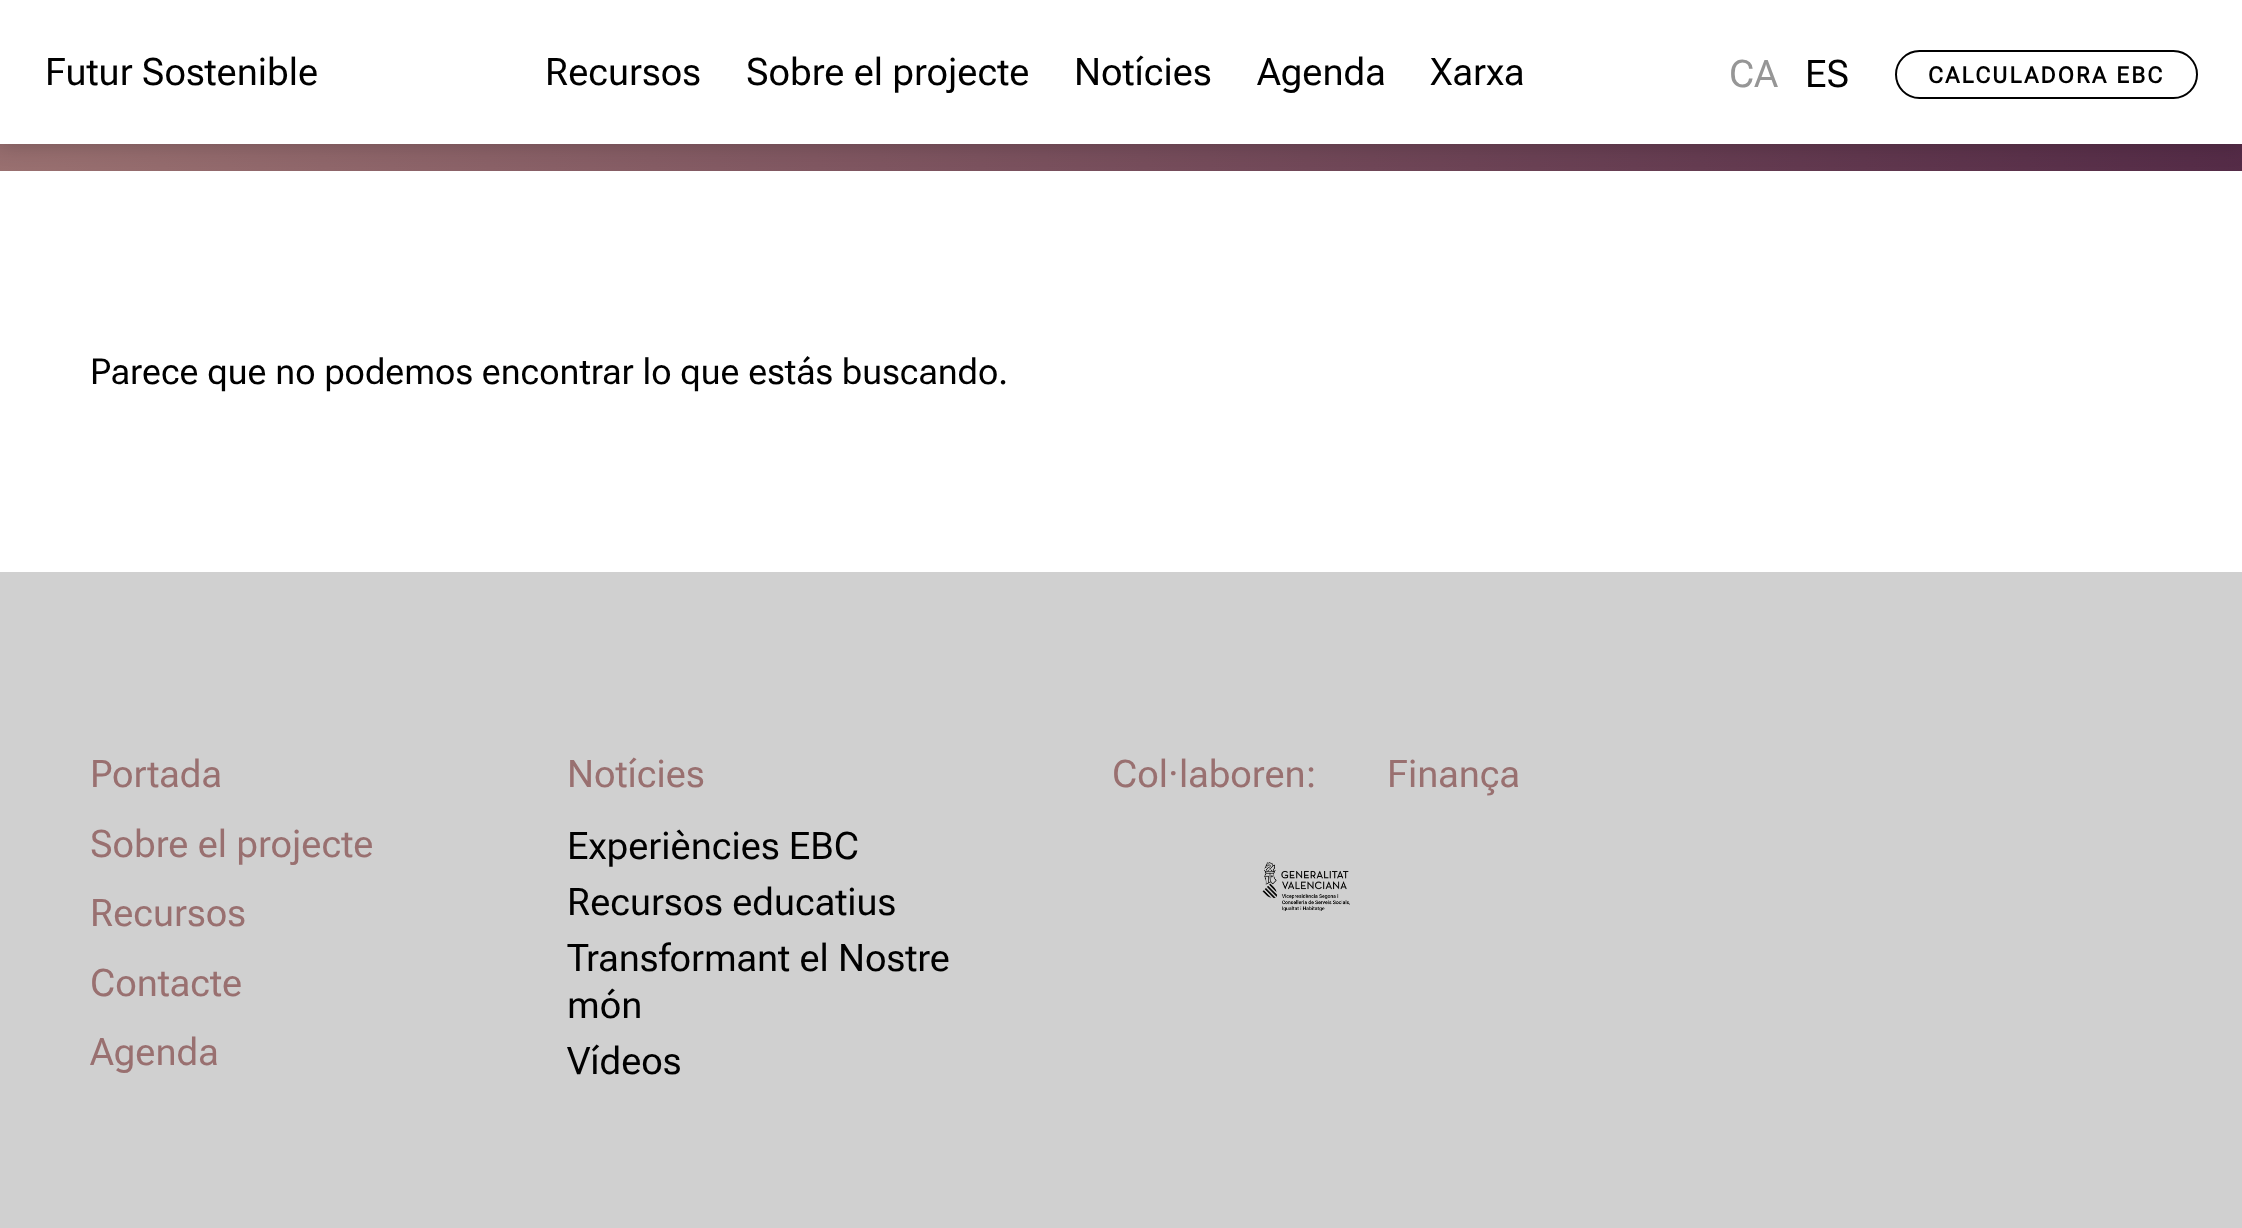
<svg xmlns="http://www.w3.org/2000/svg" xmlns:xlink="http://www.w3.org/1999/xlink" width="2242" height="1228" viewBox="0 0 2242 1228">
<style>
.cls-1{font:37.9px Roboto Flex;fill:#000000}
.cls-2{font:37.9px Roboto Flex;fill:#969696}
.cls-3{font:bold 22.5px Roboto Flex;letter-spacing:2.25px;fill:#000000}
.cls-4{font:35.75px Roboto Flex;fill:#000000}
.cls-5{font:37.9px Roboto Flex;fill:#997070}
</style>
<defs>
<radialGradient id="g1" gradientUnits="userSpaceOnUse" cx="0" cy="0" r="1" gradientTransform="matrix(3172 0 0 675 0 171)"><stop offset="0" stop-color="#997070"/><stop offset="1" stop-color="#380f36"/></radialGradient>
</defs>
<rect width="100%" height="100%" fill="#ffffff"/>
<rect fill="url(#g1)" x="0" y="144" width="2242" height="27"/>
<rect fill="#000000" fill-opacity="0.2" filter="blur(11px)" x="0" y="0" width="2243" height="144"/>
<rect fill="#ffffff" x="0" y="0" width="2242" height="144"/>
<rect fill="none" stroke="#000000" stroke-width="2" x="1896" y="51" width="301" height="47" rx="23.5"/>
<rect fill="#d0d0d0" x="0" y="572" width="2242" height="656"/>
<image xlink:href="image0.png" x="1262" y="862" width="88" height="49"/>
<text class="cls-1" x="45" y="85">Futur Sostenible</text>
<text class="cls-1" x="545" y="85">Recursos</text>
<text class="cls-1" x="746" y="85">Sobre el projecte</text>
<text class="cls-1" x="1074" y="85">Notícies</text>
<text class="cls-1" x="1257" y="85">Agenda</text>
<text class="cls-1" x="1430" y="85">Xarxa</text>
<text class="cls-2" x="1729" y="87">CA</text>
<text class="cls-1" x="1805" y="87">ES</text>
<text class="cls-3" x="1928" y="83">CALCULADORA EBC</text>
<text class="cls-4" x="90" y="384">Parece que no podemos encontrar lo que estás buscando.</text>
<text class="cls-5"><tspan x="90" y="787">Portada</tspan><tspan x="90" y="857">Sobre el projecte</tspan><tspan x="90" y="926">Recursos</tspan><tspan x="90" y="996">Contacte</tspan><tspan x="90" y="1065">Agenda</tspan></text>
<text class="cls-5" x="567" y="787">Notícies</text>
<text class="cls-1"><tspan x="567" y="859">Experiències EBC</tspan><tspan x="567" y="915">Recursos educatius</tspan><tspan x="567" y="971">Transformant el Nostre</tspan><tspan x="567" y="1018">món</tspan><tspan x="567" y="1074">Vídeos</tspan></text>
<text class="cls-5" x="1112" y="787">Col·laboren:</text>
<text class="cls-5" x="1387" y="787">Finança</text>
</svg>
